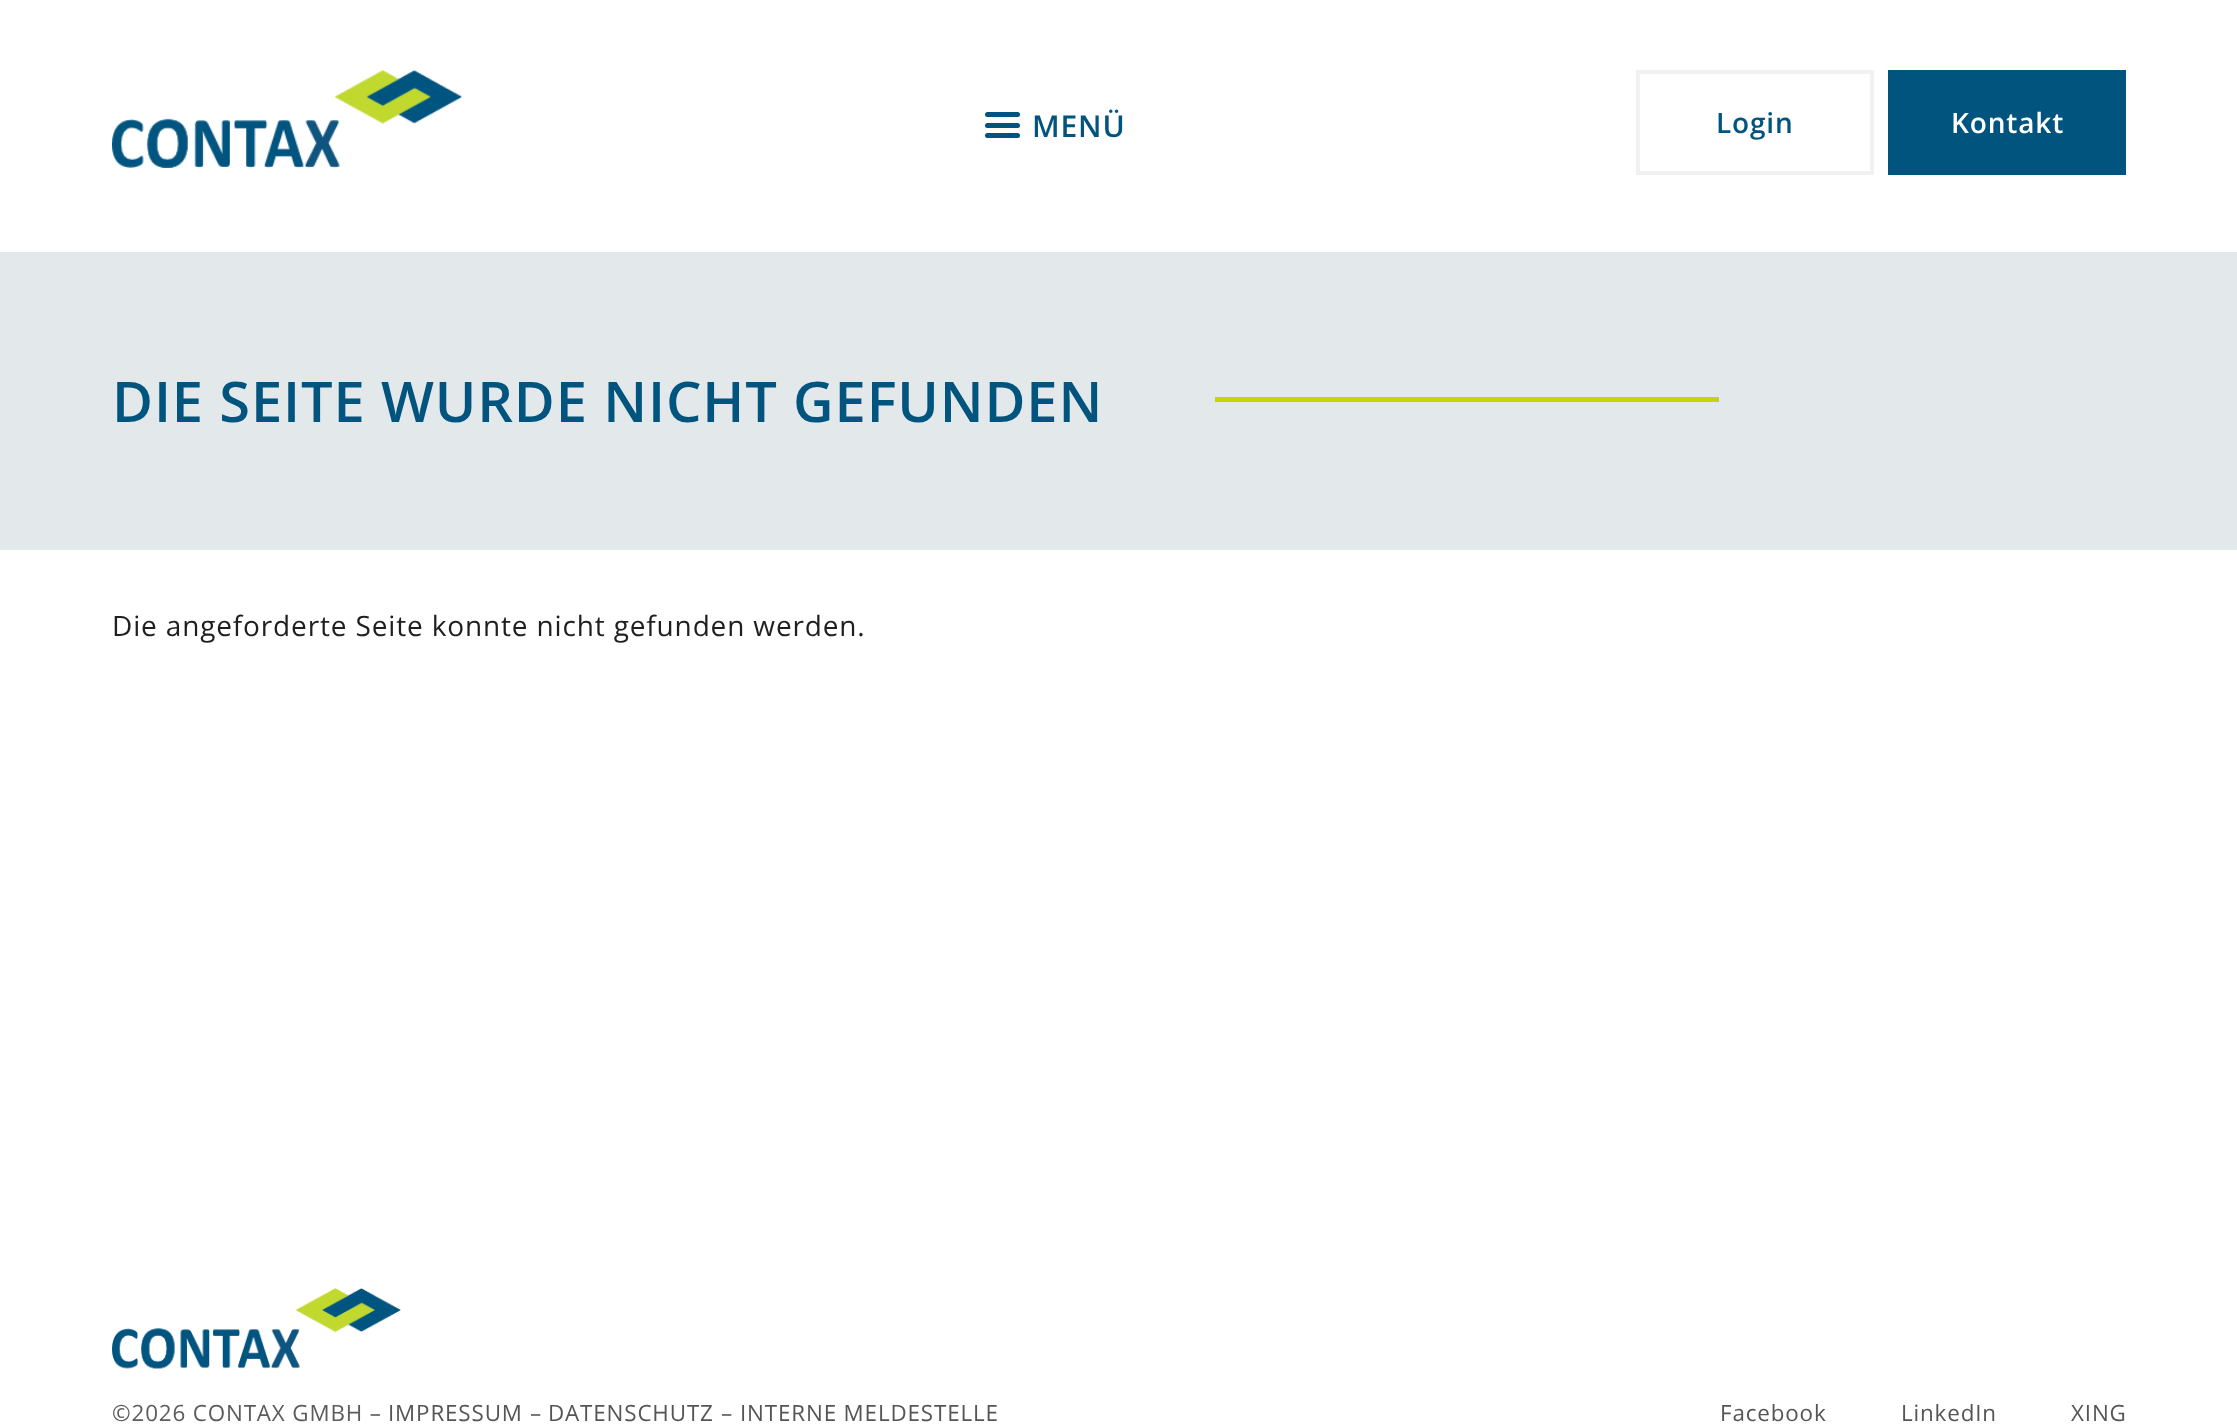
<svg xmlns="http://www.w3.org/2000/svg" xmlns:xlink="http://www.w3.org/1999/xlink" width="2237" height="1427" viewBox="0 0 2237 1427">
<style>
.cls-1{font:600 30px Open Sans;letter-spacing:0.85px;fill:#00547e}
.cls-2{font:600 28px Open Sans;letter-spacing:0.85px;fill:#00547e}
.cls-3{font:600 28px Open Sans;letter-spacing:0.85px;fill:#ffffff}
.cls-4{font:600 56px Open Sans;letter-spacing:0.85px;fill:#00547e}
.cls-5{font:28px Open Sans;letter-spacing:0.85px;fill:#1f1f1f}
.cls-6{font:22.4px Open Sans;letter-spacing:0.85px;fill:#5c5c5c}
.cls-7{font:22.4px Open Sans;letter-spacing:0.85px;fill:#555555}
</style>
<rect width="100%" height="100%" fill="#ffffff"/>
<image xlink:href="image0.png" x="112" y="70" width="350" height="98"/>
<rect fill="#00547e" x="985" y="112" width="35" height="5" rx="2.5"/>
<rect fill="#00547e" x="985" y="123" width="35" height="5" rx="2.5"/>
<rect fill="#00547e" x="985" y="133" width="35" height="5" rx="2.5"/>
<rect fill="none" stroke="#f1f1f1" stroke-width="4" x="1638" y="72" width="234" height="101"/>
<rect fill="#00547e" x="1888" y="70" width="238" height="105"/>
<rect fill="#e3e8eb" x="0" y="252" width="2237" height="298"/>
<rect fill="#c4d600" x="1215" y="397" width="504" height="5"/>
<image xlink:href="image1.png" x="112" y="1288" width="289" height="81"/>
<text class="cls-1" x="1032" y="137">MENÜ</text>
<text class="cls-2" x="1716" y="133">Login</text>
<text class="cls-3" x="1951" y="133">Kontakt</text>
<text class="cls-4" x="112" y="422">DIE SEITE WURDE NICHT GEFUNDEN</text>
<text class="cls-5" x="112" y="636">Die angeforderte Seite konnte nicht gefunden werden.</text>
<text class="cls-6" x="112" y="1421">©2026 CONTAX GMBH –</text>
<text class="cls-7" x="388" y="1421">IMPRESSUM</text>
<text class="cls-6" x="530" y="1421">–</text>
<text class="cls-7" x="548" y="1421">DATENSCHUTZ</text>
<text class="cls-6" x="721" y="1421">–</text>
<text class="cls-7" x="740" y="1421">INTERNE MELDESTELLE</text>
<text class="cls-7" x="1720" y="1421">Facebook</text>
<text class="cls-7" x="1901" y="1421">LinkedIn</text>
<text class="cls-7" x="2071" y="1421">XING</text>
</svg>
